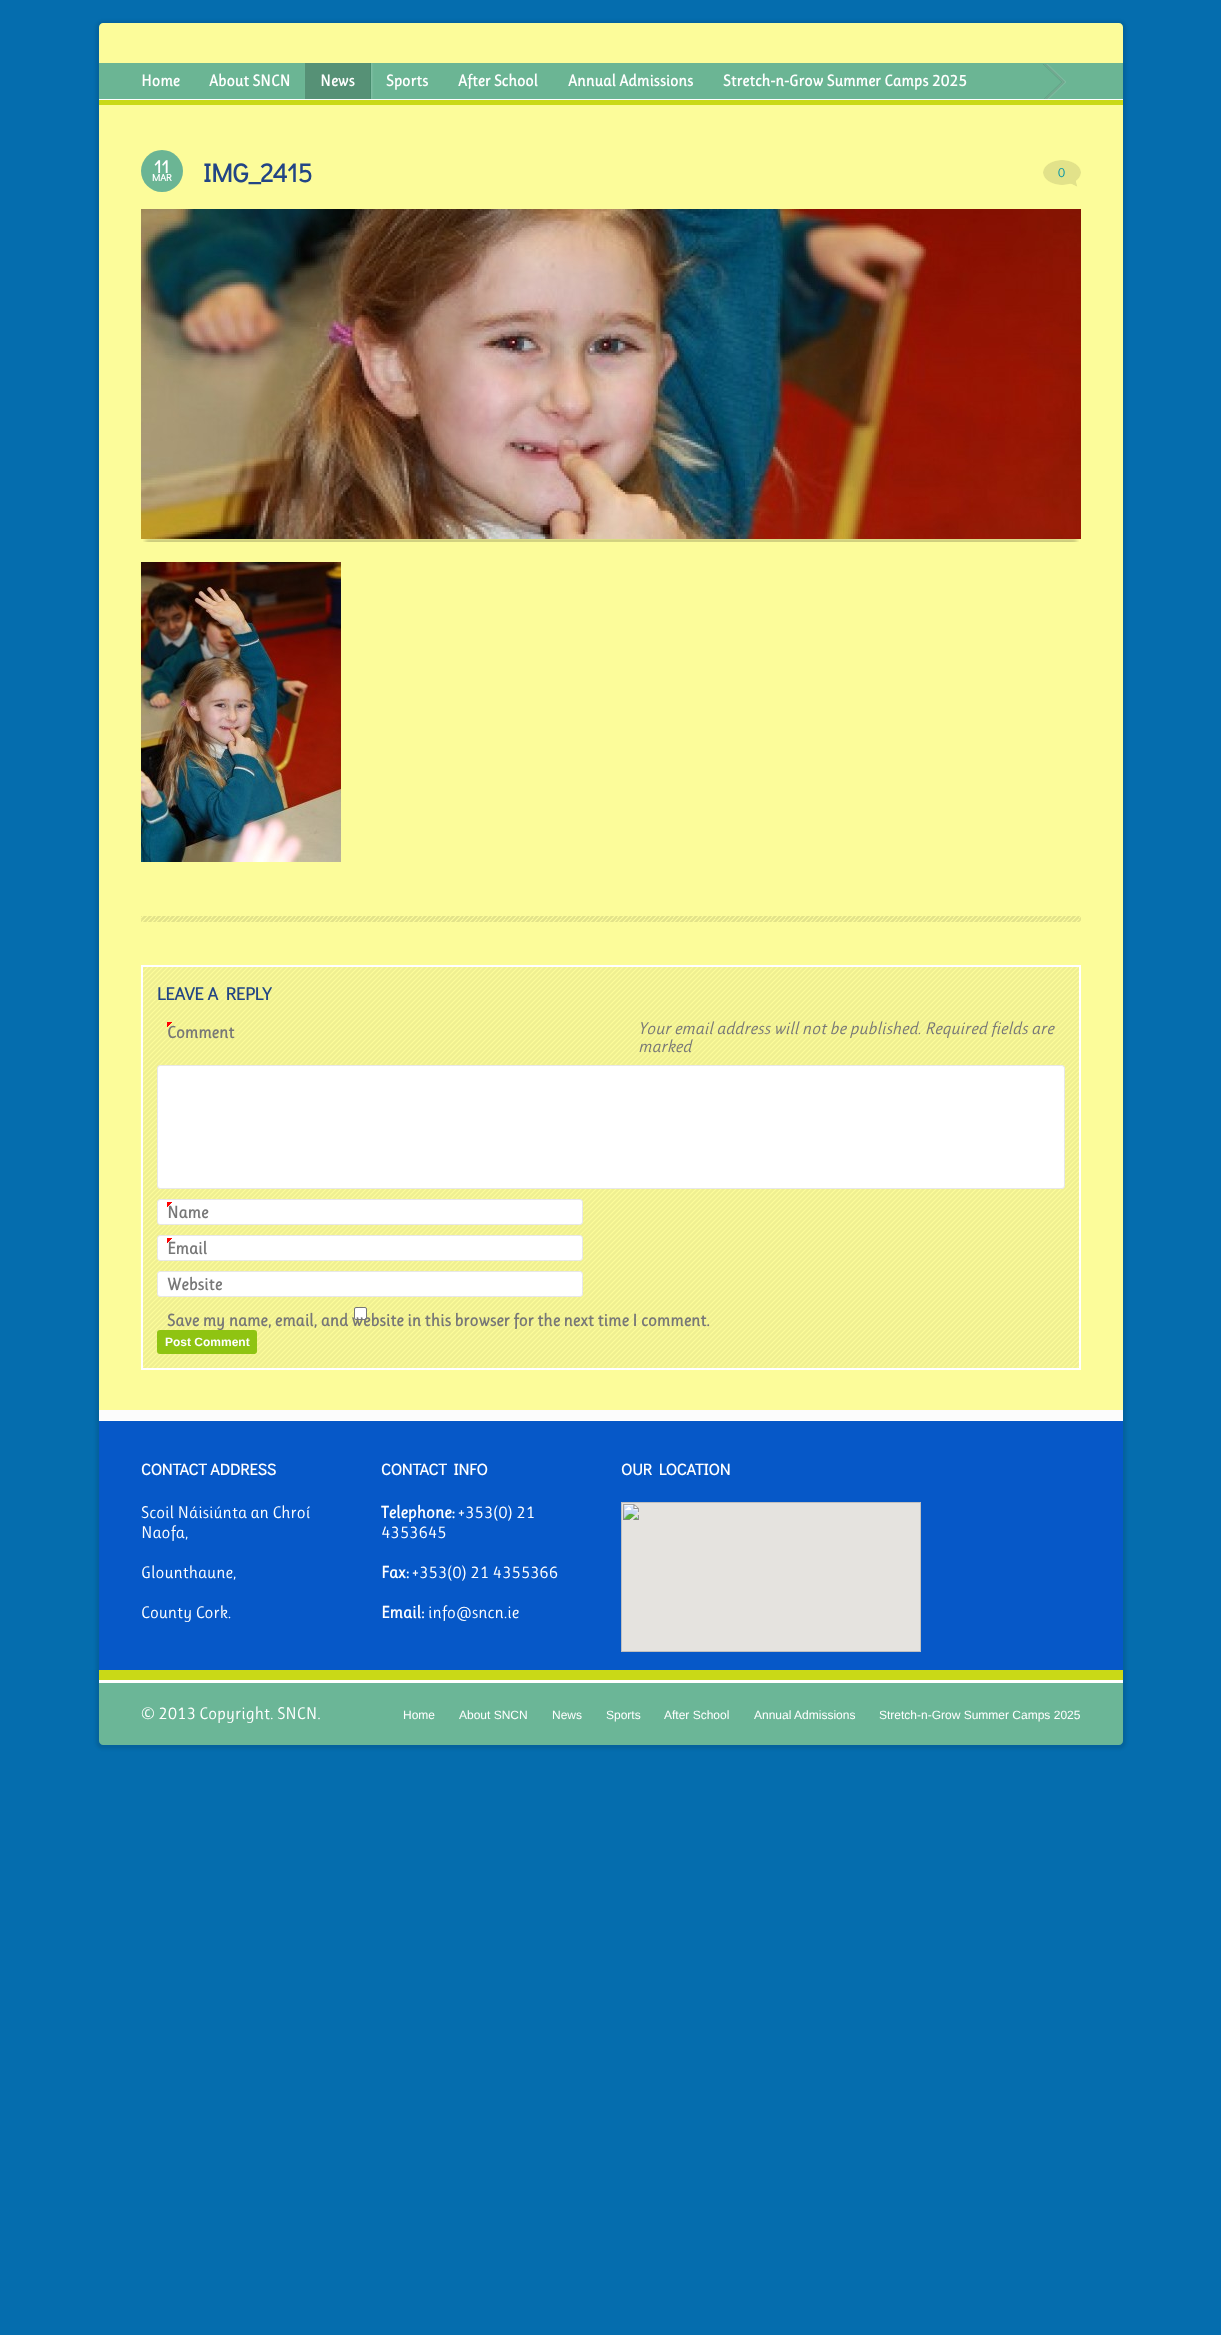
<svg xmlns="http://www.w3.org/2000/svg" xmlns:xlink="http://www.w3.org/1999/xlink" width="1221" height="2335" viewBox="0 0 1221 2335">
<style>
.cls-1{font:bold 16px Ruluko;fill:#ffffff}
.cls-2{font:bold 18px Didact Gothic;fill:#ffffff}
.cls-3{font:bold 10px Didact Gothic;fill:#ffffff}
.cls-4{font:bold 26px Didact Gothic;fill:#224585}
.cls-5{font:13px Didact Gothic;fill:#0695a6}
.cls-6{font:bold 18px Didact Gothic;fill:#224585}
.cls-7{font:bold 17px Ruluko;fill:#777777}
.cls-8{font:italic 17px Ruluko;fill:#777777}
.cls-9{font:bold 12px Liberation Sans;fill:#ffffff}
.cls-10{font:bold 16px Didact Gothic;fill:#ffffff}
.cls-11{font:17px Ruluko;fill:#ffffff}
.cls-12{font:bold 17px Ruluko;fill:#ffffff}
.cls-13{font:12px Liberation Sans;fill:#ffffff}
</style>
<rect width="100%" height="100%" fill="#056dae"/>
<rect fill="#000000" fill-opacity="0.1" filter="blur(1.5px)" x="96" y="21" width="1030" height="1728" rx="7"/>
<path fill="#fcfc9a" d="M103 23H1119C1121 23 1123 25 1123 27V100H99V27C99 25 101 23 103 23Z"/>
<rect fill="#6bb594" x="99" y="63" width="1024" height="36"/>
<rect fill="#ffffff" x="99" y="99" width="1024" height="1"/>
<rect fill="#c9d917" x="99" y="100" width="1024" height="5"/>
<rect fill="#ffffff" fill-opacity="0.2" filter="blur(1px)" x="306" y="63" width="66" height="36"/>
<rect fill="#569176" x="305" y="63" width="65" height="36"/>
<rect fill="#478d6e" x="370" y="63" width="1" height="36"/>
<image xlink:href="image0.png" x="1043" y="64" width="23" height="35"/>
<rect fill="#fcfc9a" x="99" y="105" width="1024" height="1305"/>
<circle fill="#6bb594" cx="162" cy="171" r="21"/>
<image xlink:href="image1.png" x="1043" y="160" width="38" height="27"/>
<image xlink:href="image2.png" x="143" y="539" width="936" height="3"/>
<image xlink:href="image3.png" x="141" y="209" width="940" height="330"/>
<image xlink:href="image4.png" x="141" y="562" width="200" height="300"/>
<image xlink:href="image5.png" x="141" y="916" width="940" height="6"/>
<image xlink:href="image6.png" x="143" y="967" width="936" height="401"/>
<rect fill="none" stroke="#ffffff" stroke-width="2" x="142" y="966" width="938" height="403"/>
<rect fill="#ffffff" stroke="#e8e8e8" x="157.5" y="1065.5" width="907" height="123" rx="2.5"/>
<rect fill="#ffffff" stroke="#e8e8e8" x="157.5" y="1199.5" width="425" height="25" rx="2.5"/>
<rect fill="#ffffff" stroke="#e8e8e8" x="157.5" y="1235.5" width="425" height="25" rx="2.5"/>
<rect fill="#ffffff" stroke="#e8e8e8" x="157.5" y="1271.5" width="425" height="25" rx="2.5"/>
<rect fill="#ffffff" stroke="#767676" x="354.5" y="1307.5" width="12" height="12" rx="1.5"/>
<rect fill="#fcfcfc" x="99" y="1410" width="1024" height="10"/>
<rect fill="#0658c8" x="99" y="1421" width="1024" height="249"/>
<rect fill="#ffffff" x="99" y="1420" width="1024" height="1"/>
<rect fill="#c9d917" x="99" y="1670" width="1024" height="10"/>
<image xlink:href="image10.png" x="621" y="1502" width="300" height="150"/>
<path fill="#6bb697" d="M99 1680H1123V1741C1123 1743 1121 1745 1119 1745H103C101 1745 99 1743 99 1741Z"/>
<rect fill="#ffffff" x="99" y="1680" width="1024" height="3"/>
<text class="cls-1" x="141" y="86">Home</text>
<text class="cls-1" x="209" y="86">About SNCN</text>
<text class="cls-1" x="320" y="86">News</text>
<text class="cls-1" x="386" y="86">Sports</text>
<text class="cls-1" x="458" y="86">After School</text>
<text class="cls-1" x="568" y="86">Annual Admissions</text>
<text class="cls-1" x="723" y="86">Stretch-n-Grow Summer Camps 2025</text>
<text class="cls-2" x="154" y="173">11</text>
<text class="cls-3" x="152" y="181">MAR</text>
<text class="cls-4" x="203" y="182">IMG_2415</text>
<text class="cls-5" x="1058" y="177">0</text>
<text class="cls-6" x="157" y="1000">LEAVE A REPLY</text>
<text class="cls-7" x="167" y="1038">Comment</text>
<image xlink:href="image7.png" x="167" y="1022" width="5" height="5"/>
<text class="cls-8"><tspan x="638" y="1034">Your email address will not be published. Required fields are</tspan><tspan x="638" y="1052">marked</tspan></text>
<text class="cls-7" x="167" y="1218">Name</text>
<image xlink:href="image8.png" x="167" y="1202" width="5" height="5"/>
<text class="cls-7" x="167" y="1254">Email</text>
<image xlink:href="image9.png" x="167" y="1238" width="5" height="5"/>
<text class="cls-7" x="167" y="1290">Website</text>
<text class="cls-7" x="167" y="1326">Save my name, email, and website in this browser for the next time I comment.</text>
<rect fill="#8fc412" x="157" y="1330" width="100" height="24" rx="3"/>
<text class="cls-9" x="165" y="1346">Post Comment</text>
<text class="cls-10" x="141" y="1475">CONTACT ADDRESS</text>
<text class="cls-11"><tspan x="141" y="1518">Scoil Náisiúnta an Chroí</tspan><tspan x="141" y="1538">Naofa,</tspan></text>
<text class="cls-11" x="141" y="1578">Glounthaune,</text>
<text class="cls-11" x="141" y="1618">County Cork.</text>
<text class="cls-10" x="381" y="1475">CONTACT INFO</text>
<text class="cls-12" x="381" y="1518">Telephone:</text>
<text class="cls-11" x="458" y="1518">+353(0) 21</text>
<text class="cls-11" x="381" y="1538">4353645</text>
<text class="cls-12" x="381" y="1578">Fax:</text>
<text class="cls-11" x="412" y="1578">+353(0) 21 4355366</text>
<text class="cls-12" x="381" y="1618">Email:</text>
<text class="cls-11" x="428" y="1618">info@sncn.ie</text>
<text class="cls-10" x="621" y="1475">OUR LOCATION</text>
<text class="cls-11" x="141" y="1719">© 2013 Copyright. SNCN.</text>
<text class="cls-13" x="403" y="1719">Home</text>
<text class="cls-13" x="459" y="1719">About SNCN</text>
<text class="cls-13" x="552" y="1719">News</text>
<text class="cls-13" x="606" y="1719">Sports</text>
<text class="cls-13" x="664" y="1719">After School</text>
<text class="cls-13" x="754" y="1719">Annual Admissions</text>
<text class="cls-13" x="879" y="1719">Stretch-n-Grow Summer Camps 2025</text>
</svg>
